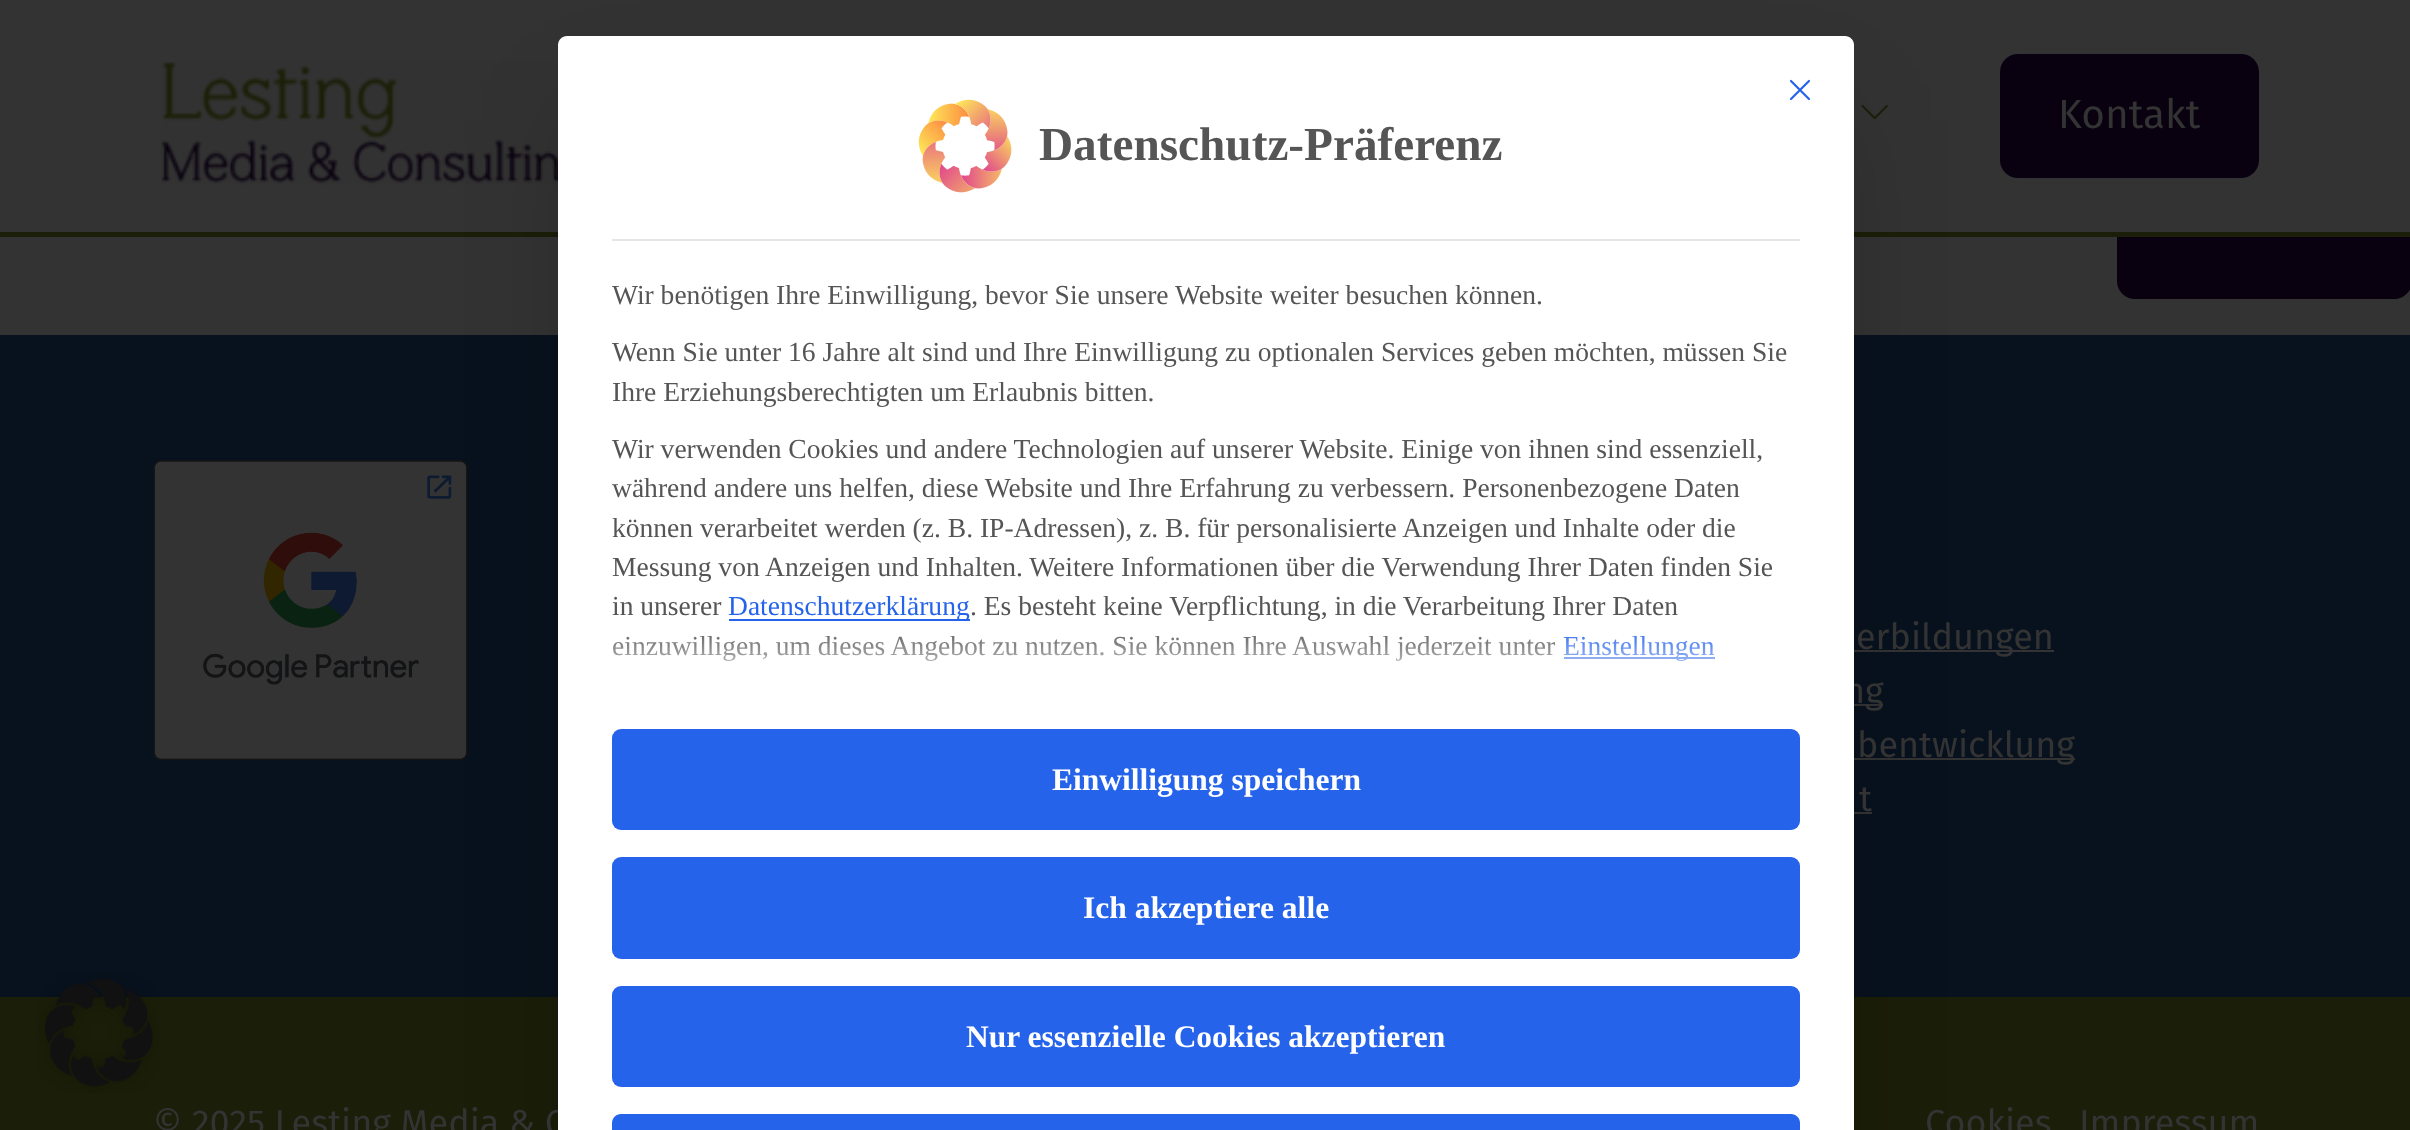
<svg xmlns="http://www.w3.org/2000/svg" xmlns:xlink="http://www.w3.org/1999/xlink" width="2410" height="1130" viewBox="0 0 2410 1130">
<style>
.cls-1{font:40.5px Fira Sans;fill:#333333}
.cls-2{font:36px Fira Sans;fill:#333333}
.cls-3{font:bold 47.25px Liberation Serif;fill:#555555}
.cls-4{font:27.55px Liberation Serif;fill:#555555}
.cls-5{font:27.55px Liberation Serif;fill:#2563eb}
.cls-6{font:bold 31.5px Liberation Serif;fill:#ffffff}
</style>
<defs>
<linearGradient id="g1" gradientUnits="userSpaceOnUse" x1="1206" y1="693" x2="1206" y2="626"><stop offset="0" stop-color="#ffffff"/><stop offset="1" stop-color="#ffffff" stop-opacity="0"/></linearGradient>
</defs>
<rect width="100%" height="100%" fill="#333333"/>
<rect fill="#09010f" x="2117" y="176" width="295" height="123" rx="18"/>
<rect fill="#333333" x="2117" y="176" width="293" height="56"/>
<rect fill="#1b1e08" x="0" y="232" width="2410" height="5"/>
<image xlink:href="image0.png" x="161" y="62" width="397" height="123"/>
<image xlink:href="image1.png" x="1861" y="104" width="27" height="16"/>
<rect fill="#09010f" x="2000" y="54" width="259" height="124" rx="18"/>
<rect fill="#08121e" x="0" y="335" width="2410" height="662"/>
<image xlink:href="image2.png" x="153" y="460" width="315" height="300"/>
<rect fill="#333333" x="1854" y="650" width="200" height="2"/>
<rect fill="#333333" x="1854" y="704" width="29" height="2"/>
<rect fill="#333333" x="1854" y="758" width="221" height="2"/>
<rect fill="#333333" x="1854" y="812" width="18" height="2"/>
<rect fill="#1b1e08" x="0" y="997" width="2410" height="133"/>
<image xlink:href="image3.png" x="36" y="970" width="125" height="124"/>
<rect fill="#000000" fill-opacity="0.25" filter="blur(56px)" x="585" y="119" width="1242" height="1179"/>
<text class="cls-1" x="2058" y="128">Kontakt</text>
<text class="cls-2" x="1856" y="649">erbildungen</text>
<text class="cls-2" x="1844" y="703">ng</text>
<text class="cls-2" x="1857" y="757">bentwicklung</text>
<text class="cls-2" x="1859" y="811">t</text>
<text class="cls-2" x="153" y="1135">© 2025 Lesting Media &amp; C</text>
<text class="cls-2" x="1925" y="1135">Cookies</text>
<text class="cls-2" x="2079" y="1135">Impressum</text>
<path fill="#ffffff" d="M567 36H1845C1850 36 1854 40 1854 45V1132H558V45C558 40 562 36 567 36Z"/>
<path fill="none" stroke="#2563eb" stroke-width="2.2" stroke-linecap="round" stroke-linejoin="round" d="M1791 99L1809 81M1791 81L1809 99"/>
<rect fill="#e5e5e5" x="612" y="239" width="1188" height="2"/>
<image xlink:href="image4.png" x="918" y="99" width="94" height="94"/>
<text class="cls-3" x="1039" y="160">Datenschutz-Präferenz</text>
<text class="cls-4" x="612" y="304">Wir benötigen Ihre Einwilligung, bevor Sie unsere Website weiter besuchen können.</text>
<text class="cls-4"><tspan x="612" y="361">Wenn Sie unter 16 Jahre alt sind und Ihre Einwilligung zu optionalen Services geben möchten, müssen Sie</tspan><tspan x="612" y="401">Ihre Erziehungsberechtigten um Erlaubnis bitten.</tspan></text>
<text class="cls-4"><tspan x="612" y="458">Wir verwenden Cookies und andere Technologien auf unserer Website. Einige von ihnen sind essenziell,</tspan><tspan x="612" y="497">während andere uns helfen, diese Website und Ihre Erfahrung zu verbessern. Personenbezogene Daten</tspan><tspan x="612" y="537">können verarbeitet werden (z. B. IP-Adressen), z. B. für personalisierte Anzeigen und Inhalte oder die</tspan><tspan x="612" y="576">Messung von Anzeigen und Inhalten. Weitere Informationen über die Verwendung Ihrer Daten finden Sie</tspan><tspan x="612" y="615">in unserer</tspan></text>
<rect fill="#2563eb" x="729" y="619" width="241" height="2"/>
<text class="cls-5" x="728" y="615">Datenschutzerklärung</text>
<text class="cls-4" x="970" y="615">. Es besteht keine Verpflichtung, in die Verarbeitung Ihrer Daten</text>
<text class="cls-4" x="612" y="655">einzuwilligen, um dieses Angebot zu nutzen. Sie können Ihre Auswahl jederzeit unter</text>
<rect fill="#2563eb" x="1564" y="657" width="151" height="2"/>
<text class="cls-5" x="1563" y="655">Einstellungen</text>
<rect fill="url(#g1)" x="613" y="635" width="1102" height="26"/>
<rect fill="#2563eb" x="612" y="729" width="1188" height="101" rx="9"/>
<text class="cls-6" x="1052" y="790">Einwilligung speichern</text>
<rect fill="#2563eb" x="612" y="857" width="1188" height="102" rx="9"/>
<text class="cls-6" x="1083" y="918">Ich akzeptiere alle</text>
<rect fill="#2563eb" x="612" y="986" width="1188" height="101" rx="9"/>
<text class="cls-6" x="966" y="1047">Nur essenzielle Cookies akzeptieren</text>
<path fill="#2563eb" d="M621 1114H1791C1796 1114 1800 1118 1800 1123V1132H612V1123C612 1118 616 1114 621 1114Z"/>
</svg>
